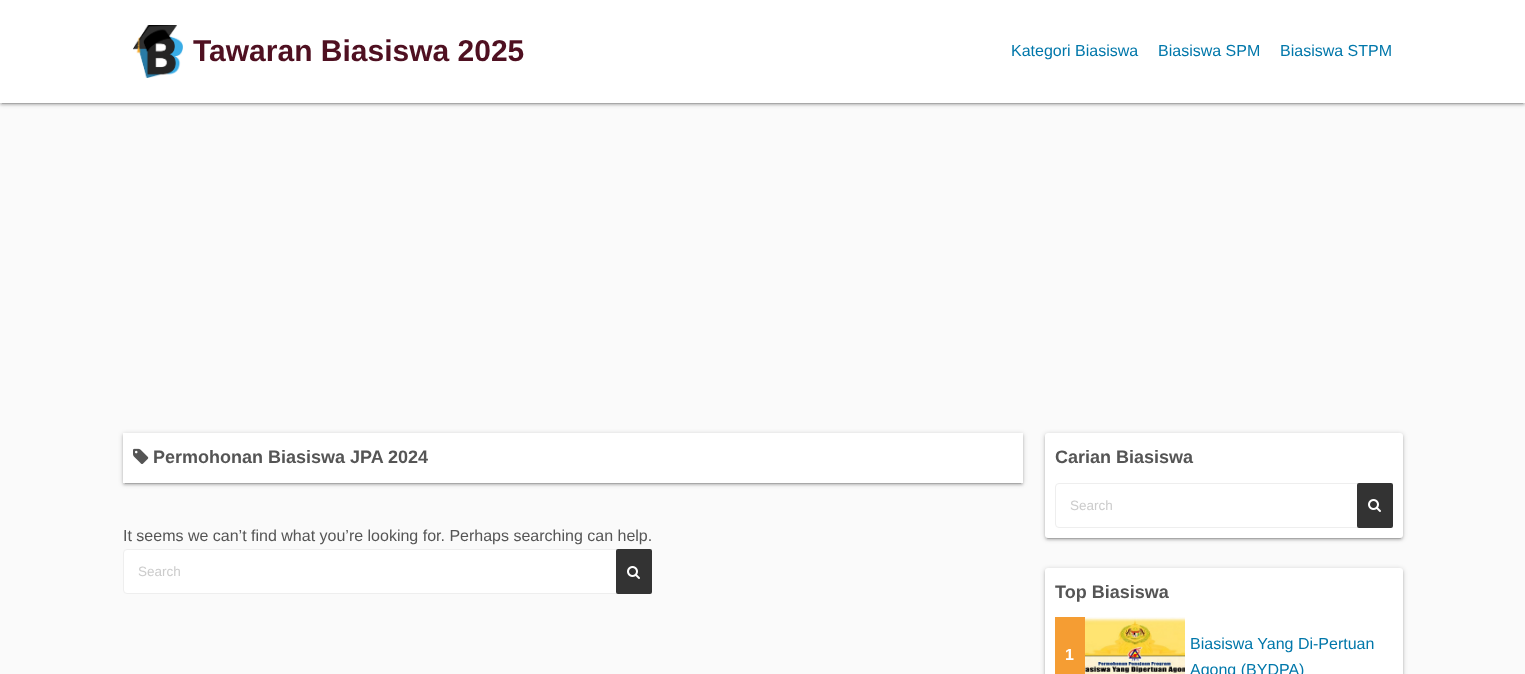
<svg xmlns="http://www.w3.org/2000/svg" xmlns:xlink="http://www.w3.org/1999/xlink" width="1525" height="674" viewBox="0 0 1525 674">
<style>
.cls-1{font:bold 30px Liberation Sans;fill:#4f1021}
.cls-2{font:16px Liberation Sans;fill:#0077aa}
.cls-3{font:bold 18px Liberation Sans;fill:#555555}
.cls-4{font:16px Liberation Sans;fill:#555555}
.cls-5{font:13.5px Liberation Sans;fill:#cccccc}
.cls-6{font:bold 16px Liberation Sans;fill:#ffffff}
</style>
<rect width="100%" height="100%" fill="#fafafa"/>
<rect fill="#000000" fill-opacity="0.2" filter="blur(2.5px)" x="0" y="1" width="1525" height="103"/>
<rect fill="#000000" fill-opacity="0.12" filter="blur(0.5px)" x="2" y="5" width="1521" height="99"/>
<rect fill="#000000" fill-opacity="0.14" filter="blur(1px)" x="0" y="2" width="1525" height="103"/>
<rect fill="#ffffff" x="0" y="0" width="1525" height="103"/>
<image xlink:href="image0.png" x="133" y="25" width="50" height="53"/>
<rect fill="#000000" fill-opacity="0.2" filter="blur(2.5px)" x="123" y="434" width="900" height="50"/>
<rect fill="#000000" fill-opacity="0.12" filter="blur(0.5px)" x="125" y="438" width="896" height="46"/>
<rect fill="#000000" fill-opacity="0.14" filter="blur(1px)" x="123" y="435" width="900" height="50"/>
<rect fill="#ffffff" x="123" y="433" width="900" height="50"/>
<image xlink:href="image1.png" x="133" y="448" width="16" height="16"/>
<rect fill="#ffffff" stroke="#eeeeee" x="123.5" y="549.5" width="528" height="44" rx="3.5"/>
<rect fill="#333333" x="616" y="549" width="36" height="45" rx="2"/>
<image xlink:href="image2.png" x="627" y="566" width="13" height="13"/>
<rect fill="#000000" fill-opacity="0.2" filter="blur(2.5px)" x="1045" y="434" width="358" height="105" rx="3"/>
<rect fill="#000000" fill-opacity="0.12" filter="blur(0.5px)" x="1047" y="438" width="354" height="101" rx="1"/>
<rect fill="#000000" fill-opacity="0.14" filter="blur(1px)" x="1045" y="435" width="358" height="105" rx="3"/>
<rect fill="#ffffff" x="1045" y="433" width="358" height="105" rx="3"/>
<rect fill="none" stroke="#eeeeee" x="1055.5" y="483.5" width="337" height="44" rx="3.5"/>
<rect fill="#333333" x="1357" y="483" width="36" height="45" rx="2"/>
<image xlink:href="image2.png" x="1368" y="499" width="13" height="13"/>
<rect fill="#000000" fill-opacity="0.2" filter="blur(2.5px)" x="1045" y="569" width="358" height="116" rx="3"/>
<rect fill="#000000" fill-opacity="0.14" filter="blur(1px)" x="1045" y="570" width="358" height="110" rx="3"/>
<rect fill="#ffffff" x="1045" y="568" width="358" height="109" rx="3"/>
<rect fill="#f59d33" x="1055" y="617" width="30" height="57"/>
<image xlink:href="image3.png" x="1085" y="617" width="100" height="57"/>
<text class="cls-1" x="193" y="61">Tawaran Biasiswa 2025</text>
<text class="cls-2" x="1011" y="56">Kategori Biasiswa</text>
<text class="cls-2" x="1158" y="56">Biasiswa SPM</text>
<text class="cls-2" x="1280" y="56">Biasiswa STPM</text>
<text class="cls-3" x="153" y="463">Permohonan Biasiswa JPA 2024</text>
<text class="cls-4" x="123" y="541">It seems we can’t find what you’re looking for. Perhaps searching can help.</text>
<text class="cls-5" x="138" y="576">Search</text>
<text class="cls-3" x="1055" y="463">Carian Biasiswa</text>
<text class="cls-5" x="1070" y="510">Search</text>
<text class="cls-3" x="1055" y="598">Top Biasiswa</text>
<text class="cls-6" x="1065" y="660">1</text>
<text class="cls-2"><tspan x="1190" y="649">Biasiswa Yang Di-Pertuan</tspan><tspan x="1190" y="675">Agong (BYDPA)</tspan></text>
</svg>
